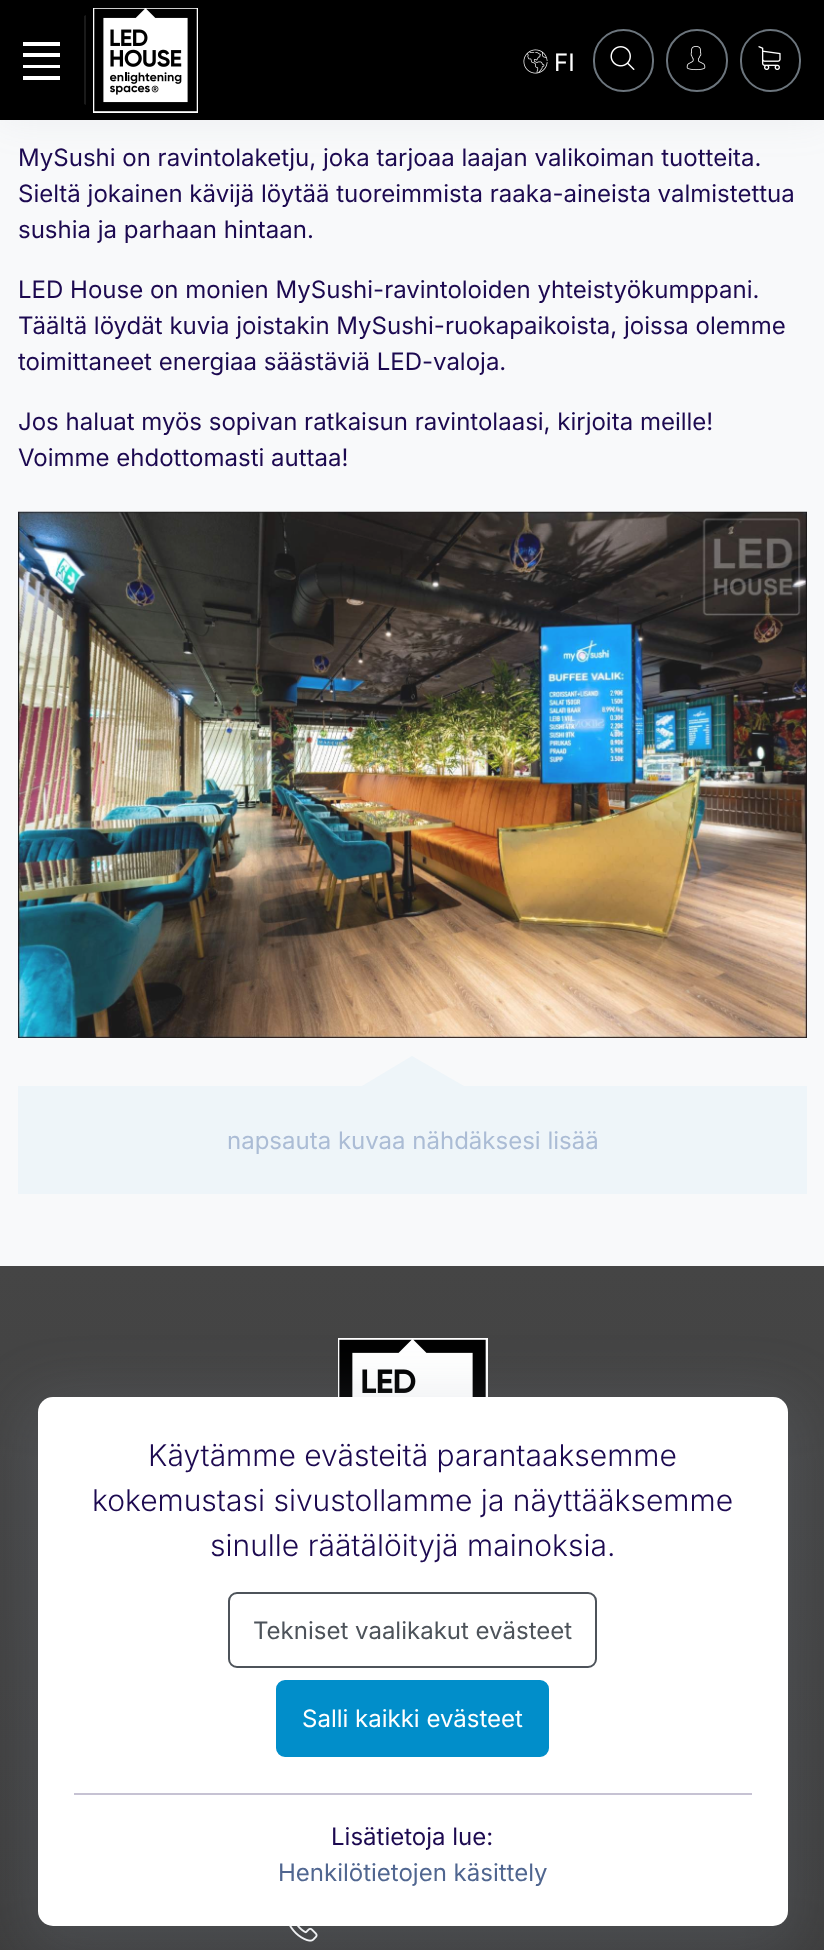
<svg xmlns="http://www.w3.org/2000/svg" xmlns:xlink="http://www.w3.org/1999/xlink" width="824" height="1950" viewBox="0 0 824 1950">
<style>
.cls-1{font:24px Inter;fill:#ffffff}
.cls-2{font:24px Inter;fill:#1c0950}
.cls-3{font:24px Inter;fill:#abbcd5}
.cls-4{font:300 30px Inter;fill:#1c0950}
.cls-5{font:24px Inter;fill:#4d535a}
.cls-6{font:24px Inter;fill:#506690}
</style>
<defs>
<linearGradient id="g1" gradientUnits="userSpaceOnUse" x1="412" y1="1266" x2="413" y2="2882"><stop offset="0" stop-color="#454545"/><stop offset="1" stop-color="#313131"/></linearGradient>
</defs>
<rect width="100%" height="100%" fill="#ffffff"/>
<rect fill="#f8f9fa" x="0" y="120" width="824" height="1146"/>
<rect fill="#8c98a4" fill-opacity="0.1" filter="blur(19px)" x="0" y="0" width="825" height="120"/>
<rect fill="#000000" x="0" y="0" width="824" height="120"/>
<path fill="#1a1a1a" d="M86 15V105L84 104V16Z"/>
<rect fill="#ffffff" x="23" y="42" width="37" height="4"/>
<rect fill="#ffffff" x="23" y="53" width="37" height="4"/>
<rect fill="#ffffff" x="23" y="65" width="37" height="3"/>
<rect fill="#ffffff" x="23" y="76" width="37" height="4"/>
<image xlink:href="image0.png" x="93" y="8" width="105" height="105"/>
<image xlink:href="image1.png" x="523" y="49" width="25" height="25"/>
<rect fill="none" stroke="#6c757d" stroke-width="2" x="594" y="30" width="59" height="61" rx="29.5"/>
<image xlink:href="image2.png" x="610" y="46" width="25" height="24"/>
<rect fill="none" stroke="#6c757d" stroke-width="2" x="667" y="30" width="60" height="61" rx="30"/>
<image xlink:href="image3.png" x="686" y="46" width="20" height="25"/>
<rect fill="none" stroke="#6c757d" stroke-width="2" x="741" y="30" width="59" height="61" rx="29.5"/>
<image xlink:href="image4.png" x="758" y="46" width="23" height="24"/>
<image xlink:href="image5.png" x="18" y="511" width="789" height="527"/>
<rect fill="#eef5f9" x="18" y="1086" width="789" height="108"/>
<path fill="#eef5f9" d="M464 1086H362L412 1056Z"/>
<rect fill="url(#g1)" x="0" y="1266" width="824" height="684"/>
<image xlink:href="image6.png" x="338" y="1338" width="150" height="59"/>
<image xlink:href="image7.png" x="289" y="1926" width="29" height="16"/>
<rect fill="#8c98a4" fill-opacity="0.18" filter="blur(30px)" x="23" y="1397" width="780" height="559" rx="30"/>
<rect fill="#ffffff" x="38" y="1397" width="750" height="529" rx="15"/>
<rect fill="none" stroke="#4d535a" stroke-width="2" x="229" y="1593" width="367" height="74" rx="8"/>
<rect fill="#018eca" stroke="#018eca" stroke-width="2" x="277" y="1681" width="271" height="75" rx="8"/>
<rect fill="#c6c2d3" x="74" y="1793" width="678" height="2"/>
<text class="cls-1" x="554" y="71">FI</text>
<text class="cls-2"><tspan x="18" y="166">MySushi on ravintolaketju, joka tarjoaa laajan valikoiman tuotteita.</tspan><tspan x="18" y="202">Sieltä jokainen kävijä löytää tuoreimmista raaka-aineista valmistettua</tspan><tspan x="18" y="238">sushia ja parhaan hintaan.</tspan></text>
<text class="cls-2"><tspan x="18" y="298">LED House on monien MySushi-ravintoloiden yhteistyökumppani.</tspan><tspan x="18" y="334">Täältä löydät kuvia joistakin MySushi-ruokapaikoista, joissa olemme</tspan><tspan x="18" y="370">toimittaneet energiaa säästäviä LED-valoja.</tspan></text>
<text class="cls-2"><tspan x="18" y="430">Jos haluat myös sopivan ratkaisun ravintolaasi, kirjoita meille!</tspan><tspan x="18" y="466">Voimme ehdottomasti auttaa!</tspan></text>
<text class="cls-3" x="227" y="1149">napsauta kuvaa nähdäksesi lisää</text>
<text class="cls-4" x="148" y="1466">Käytämme evästeitä parantaaksemme</text>
<text class="cls-4" x="92" y="1511">kokemustasi sivustollamme ja näyttääksemme</text>
<text class="cls-4" x="210" y="1556">sinulle räätälöityjä mainoksia.</text>
<text class="cls-5" x="253" y="1639">Tekniset vaalikakut evästeet</text>
<text class="cls-1" x="302" y="1727">Salli kaikki evästeet</text>
<text class="cls-2" x="331" y="1845">Lisätietoja lue:</text>
<text class="cls-6" x="278" y="1881">Henkilötietojen käsittely</text>
</svg>
